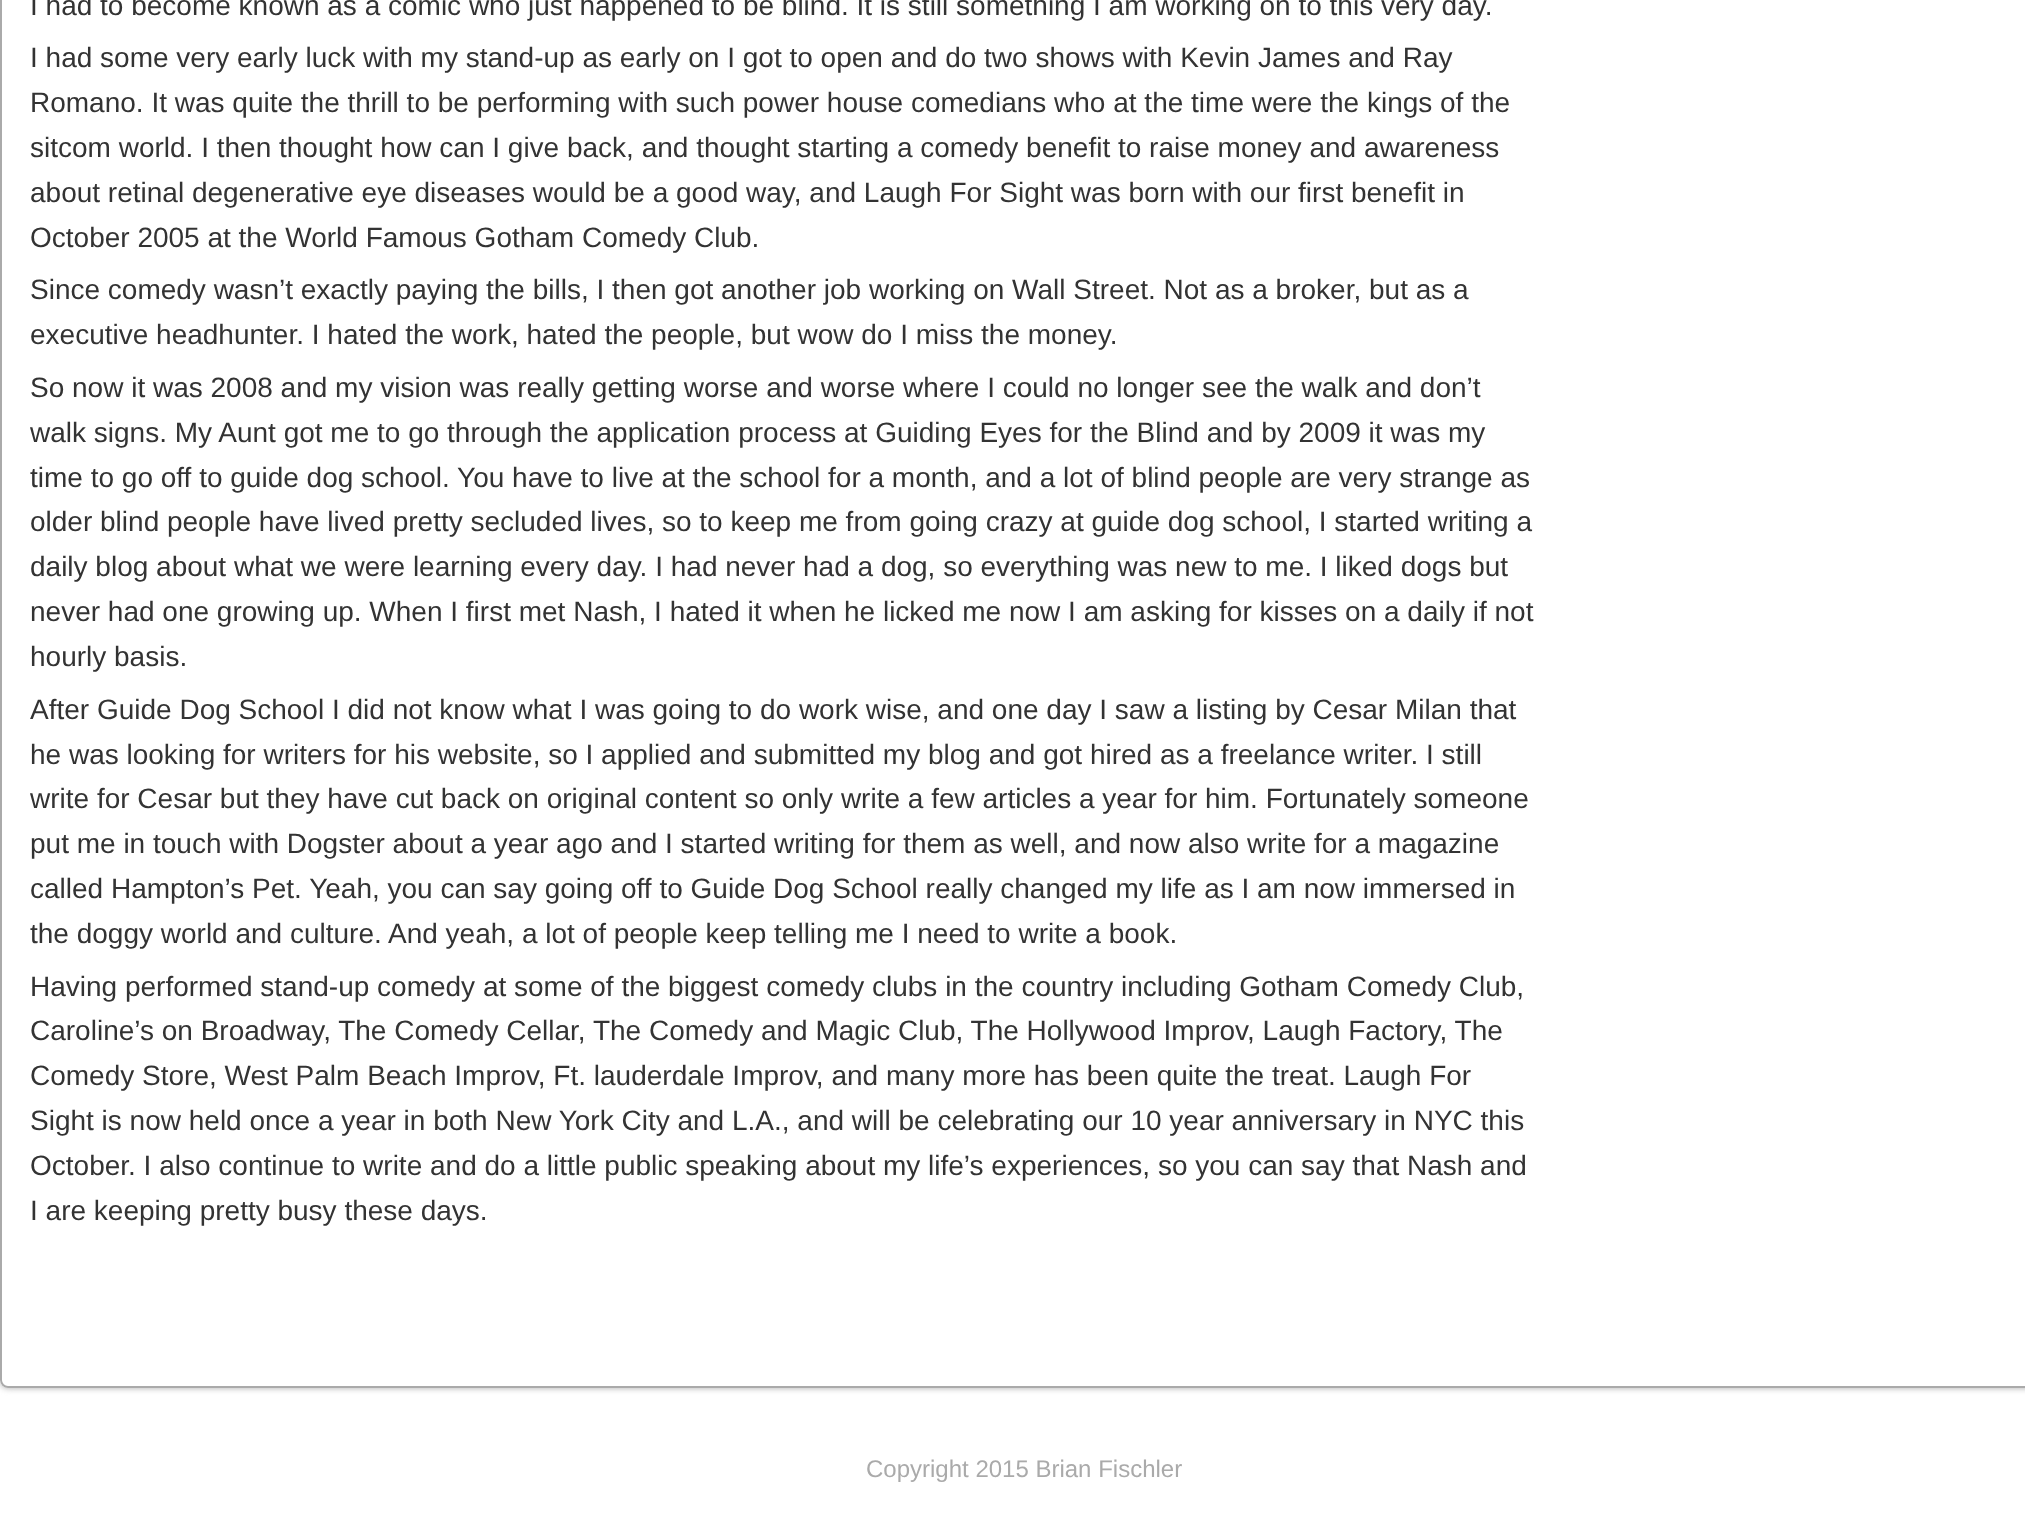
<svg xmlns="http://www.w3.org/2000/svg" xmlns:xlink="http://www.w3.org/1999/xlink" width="2025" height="1526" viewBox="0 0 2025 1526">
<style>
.cls-1{font:28px Liberation Sans;fill:#333333}
.cls-2{font:24px Liberation Sans;fill:#aaaaaa}
</style>
<defs>
<clipPath id="clip1"><path d="M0 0H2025V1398H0ZM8-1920H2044C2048.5-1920 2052-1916.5 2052-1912V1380C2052 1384.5 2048.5 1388 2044 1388H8C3.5 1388 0 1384.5 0 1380V-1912C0-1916.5 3.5-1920 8-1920Z" clip-rule="evenodd"/></clipPath>
</defs>
<rect width="100%" height="100%" fill="#ffffff"/>
<g clip-path="url(#clip1)">
<rect fill="#aaaaaa" filter="blur(3px)" x="0" y="-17" width="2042" height="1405" rx="8"/>
</g>
<image xlink:href="image0.png" x="0" y="1382" width="6" height="6"/>
<rect fill="none" stroke="#aaaaaa" stroke-width="2" x="1" y="-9" width="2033" height="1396" rx="7"/>
<text class="cls-1"><tspan x="30" y="15">I had to become known as a comic who just happened to be blind. It is still something I am working on to this very day.</tspan><tspan x="30" y="67">I had some very early luck with my stand-up as early on I got to open and do two shows with Kevin James and Ray</tspan><tspan x="30" y="112">Romano. It was quite the thrill to be performing with such power house comedians who at the time were the kings of the</tspan><tspan x="30" y="157">sitcom world. I then thought how can I give back, and thought starting a comedy benefit to raise money and awareness</tspan><tspan x="30" y="202">about retinal degenerative eye diseases would be a good way, and Laugh For Sight was born with our first benefit in</tspan><tspan x="30" y="247">October 2005 at the World Famous Gotham Comedy Club.</tspan><tspan x="30" y="299">Since comedy wasn’t exactly paying the bills, I then got another job working on Wall Street. Not as a broker, but as a</tspan><tspan x="30" y="344">executive headhunter. I hated the work, hated the people, but wow do I miss the money.</tspan><tspan x="30" y="397">So now it was 2008 and my vision was really getting worse and worse where I could no longer see the walk and don’t</tspan><tspan x="30" y="442">walk signs. My Aunt got me to go through the application process at Guiding Eyes for the Blind and by 2009 it was my</tspan><tspan x="30" y="487">time to go off to guide dog school. You have to live at the school for a month, and a lot of blind people are very strange as</tspan><tspan x="30" y="531">older blind people have lived pretty secluded lives, so to keep me from going crazy at guide dog school, I started writing a</tspan><tspan x="30" y="576">daily blog about what we were learning every day. I had never had a dog, so everything was new to me. I liked dogs but</tspan><tspan x="30" y="621">never had one growing up. When I first met Nash, I hated it when he licked me now I am asking for kisses on a daily if not</tspan><tspan x="30" y="666">hourly basis.</tspan><tspan x="30" y="719">After Guide Dog School I did not know what I was going to do work wise, and one day I saw a listing by Cesar Milan that</tspan><tspan x="30" y="764">he was looking for writers for his website, so I applied and submitted my blog and got hired as a freelance writer. I still</tspan><tspan x="30" y="808">write for Cesar but they have cut back on original content so only write a few articles a year for him. Fortunately someone</tspan><tspan x="30" y="853">put me in touch with Dogster about a year ago and I started writing for them as well, and now also write for a magazine</tspan><tspan x="30" y="898">called Hampton’s Pet. Yeah, you can say going off to Guide Dog School really changed my life as I am now immersed in</tspan><tspan x="30" y="943">the doggy world and culture. And yeah, a lot of people keep telling me I need to write a book.</tspan><tspan x="30" y="996">Having performed stand-up comedy at some of the biggest comedy clubs in the country including Gotham Comedy Club,</tspan><tspan x="30" y="1040">Caroline’s on Broadway, The Comedy Cellar, The Comedy and Magic Club, The Hollywood Improv, Laugh Factory, The</tspan><tspan x="30" y="1085">Comedy Store, West Palm Beach Improv, Ft. lauderdale Improv, and many more has been quite the treat. Laugh For</tspan><tspan x="30" y="1130">Sight is now held once a year in both New York City and L.A., and will be celebrating our 10 year anniversary in NYC this</tspan><tspan x="30" y="1175">October. I also continue to write and do a little public speaking about my life’s experiences, so you can say that Nash and</tspan><tspan x="30" y="1220">I are keeping pretty busy these days.</tspan></text>
<text class="cls-2" x="866" y="1477">Copyright 2015 Brian Fischler</text>
</svg>
